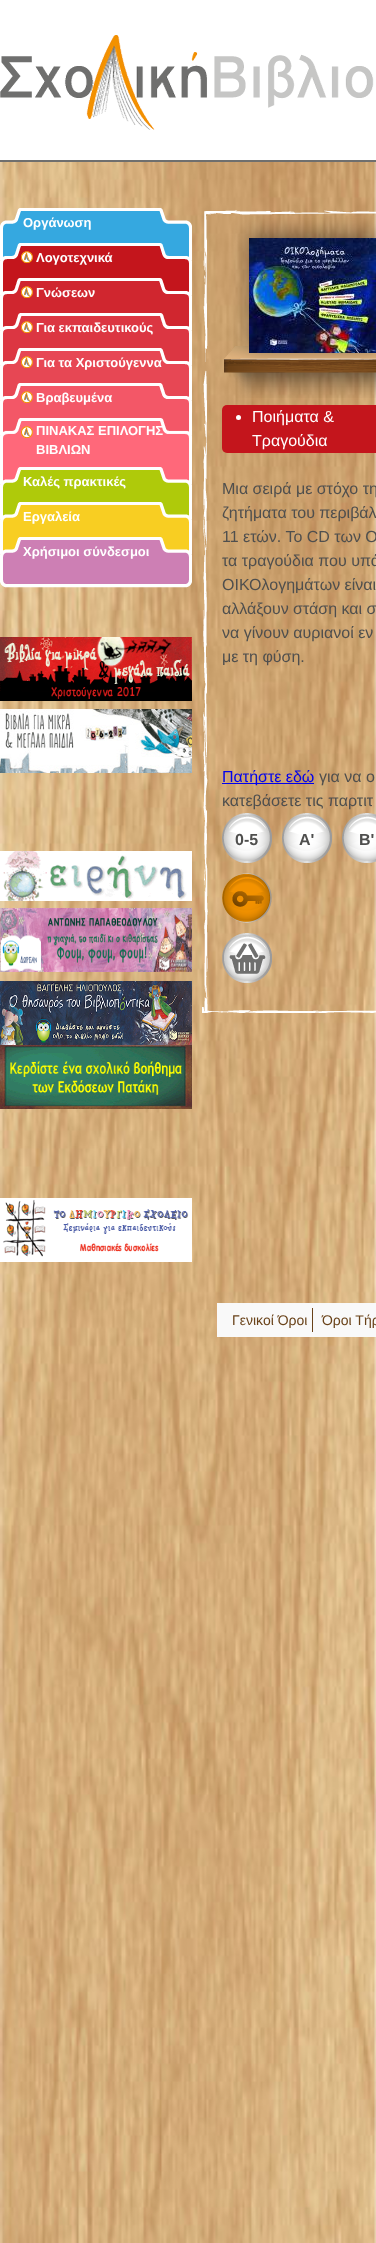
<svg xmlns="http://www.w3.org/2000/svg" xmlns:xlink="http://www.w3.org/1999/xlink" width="376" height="2243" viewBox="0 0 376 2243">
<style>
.cls-1{font:bold 13px Liberation Sans;fill:#ffffff}
.cls-2{font:16px Liberation Sans;fill:#ffffff}
.cls-3{font:16px Liberation Sans;fill:#4f4f4e}
.cls-4{font:16px Liberation Sans;fill:#0000ee}
.cls-5{font:bold 16px Liberation Sans;fill:#4f4f4e}
.cls-6{font:14px Liberation Sans;fill:#694219}
</style>
<rect width="100%" height="100%" fill="#ffffff"/>
<image xlink:href="image0.png" x="0" y="162" width="376" height="2081"/>
<rect fill="#6f6f6e" x="0" y="160" width="376" height="2"/>
<image xlink:href="image1.png" x="0" y="35" width="374" height="95"/>
<image xlink:href="image2.png" x="0" y="208" width="192" height="52"/>
<image xlink:href="image3.png" x="0" y="243" width="192" height="52"/>
<image xlink:href="image4.png" x="21" y="251" width="12" height="12"/>
<image xlink:href="image5.png" x="0" y="278" width="192" height="52"/>
<image xlink:href="image6.png" x="21" y="286" width="12" height="12"/>
<image xlink:href="image7.png" x="0" y="313" width="192" height="52"/>
<image xlink:href="image8.png" x="21" y="321" width="12" height="12"/>
<image xlink:href="image9.png" x="0" y="348" width="192" height="52"/>
<image xlink:href="image10.png" x="21" y="356" width="12" height="12"/>
<image xlink:href="image11.png" x="0" y="383" width="192" height="52"/>
<image xlink:href="image12.png" x="21" y="391" width="12" height="12"/>
<image xlink:href="image13.png" x="0" y="418" width="192" height="66"/>
<image xlink:href="image14.png" x="21" y="426" width="12" height="12"/>
<image xlink:href="image15.png" x="0" y="467" width="192" height="52"/>
<image xlink:href="image16.png" x="0" y="502" width="192" height="52"/>
<image xlink:href="image17.png" x="0" y="537" width="192" height="51"/>
<image xlink:href="image18.png" x="0" y="637" width="192" height="64"/>
<image xlink:href="image19.png" x="0" y="709" width="192" height="64"/>
<image xlink:href="image20.png" x="0" y="851" width="192" height="50"/>
<image xlink:href="image21.png" x="0" y="908" width="192" height="64"/>
<image xlink:href="image22.png" x="0" y="981" width="192" height="64"/>
<image xlink:href="image23.png" x="0" y="1045" width="192" height="64"/>
<image xlink:href="image24.png" x="0" y="1198" width="192" height="64"/>
<image xlink:href="image25.png" x="202" y="1007" width="174" height="6"/>
<image xlink:href="image26.png" x="203" y="210" width="173" height="803"/>
<image xlink:href="image27.png" x="224" y="346" width="152" height="52"/>
<rect fill="#000000" fill-opacity="0.4" filter="blur(10px)" x="249" y="233" width="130" height="115"/>
<image xlink:href="image28.png" x="249" y="238" width="127" height="115"/>
<rect fill="#c4151c" x="222" y="405" width="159" height="48" rx="5"/>
<circle fill="#ffffff" cx="238.5" cy="417.5" r="2.5"/>
<rect fill="#0000ee" x="222" y="783" width="92" height="1"/>
<image xlink:href="image29.png" x="222" y="813" width="50" height="50"/>
<image xlink:href="image30.png" x="282" y="813" width="50" height="50"/>
<image xlink:href="image31.png" x="342" y="813" width="34" height="50"/>
<image xlink:href="image32.png" x="222" y="873" width="50" height="50"/>
<image xlink:href="image33.png" x="222" y="933" width="50" height="50"/>
<rect fill="#f9f9f9" x="217" y="1303" width="159" height="34"/>
<rect fill="#694219" x="312" y="1308" width="1" height="24"/>
<text class="cls-1" x="23" y="227">Οργάνωση</text>
<text class="cls-1" x="36" y="262">Λογοτεχνικά</text>
<text class="cls-1" x="36" y="297">Γνώσεων</text>
<text class="cls-1" x="36" y="332">Για εκπαιδευτικούς</text>
<text class="cls-1" x="36" y="367">Για τα Χριστούγεννα</text>
<text class="cls-1" x="36" y="402">Βραβευμένα</text>
<text class="cls-1"><tspan x="36" y="435">ΠΙΝΑΚΑΣ ΕΠΙΛΟΓΗΣ</tspan><tspan x="36" y="454">ΒΙΒΛΙΩΝ</tspan></text>
<text class="cls-1" x="23" y="486">Καλές πρακτικές</text>
<text class="cls-1" x="23" y="521">Εργαλεία</text>
<text class="cls-1" x="23" y="556">Χρήσιμοι σύνδεσμοι</text>
<text class="cls-2"><tspan x="252" y="422">Ποιήματα &amp;</tspan><tspan x="252" y="446">Τραγούδια</tspan></text>
<text class="cls-3"><tspan x="222" y="494">Μια σειρά με στόχο τη</tspan><tspan x="222" y="518">ζητήματα του περιβάλ</tspan><tspan x="222" y="542">11 ετών. Το CD των Ο</tspan><tspan x="222" y="566">τα τραγούδια που υπά</tspan><tspan x="222" y="590">ΟΙΚΟλογημάτων είναι</tspan><tspan x="222" y="614">αλλάξουν στάση και σ</tspan><tspan x="222" y="638">να γίνουν αυριανοί εν</tspan><tspan x="222" y="662">με τη φύση.</tspan></text>
<text class="cls-4" x="222" y="782">Πατήστε εδώ</text>
<text class="cls-3" x="319" y="782">για να ο</text>
<text class="cls-3" x="222" y="806">κατεβάσετε τις παρτιτ</text>
<text class="cls-5" x="235" y="845">0-5</text>
<text class="cls-5" x="299" y="845">Α'</text>
<text class="cls-5" x="359" y="845">Β'</text>
<text class="cls-6" x="232" y="1325">Γενικοί Όροι</text>
<text class="cls-6" x="322" y="1325">Όροι Τήρ</text>
</svg>
